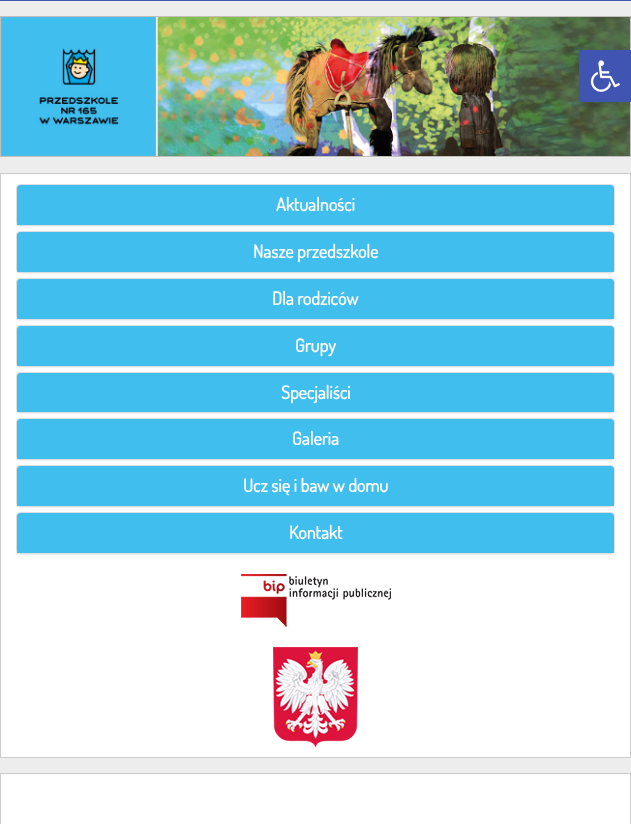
<svg xmlns="http://www.w3.org/2000/svg" xmlns:xlink="http://www.w3.org/1999/xlink" width="631" height="824" viewBox="0 0 631 824">
<style>
.cls-1{font:bold 18px Dosis;fill:#ffffff}
</style>
<rect width="100%" height="100%" fill="#ededed"/>
<rect fill="#4054b2" x="0" y="0" width="631" height="1"/>
<rect fill="none" stroke="#c2beb9" x="0.5" y="16.5" width="630" height="140"/>
<image xlink:href="image1.png" x="1" y="17" width="629" height="139"/>
<rect fill="#000000" fill-opacity="0.1" filter="blur(5px)" x="579" y="50" width="52" height="52"/>
<rect fill="#4054b2" x="579" y="50" width="52" height="52"/>
<image xlink:href="image0.png" x="590" y="60" width="30" height="32"/>
<rect fill="#ffffff" stroke="#cccccc" x="0.5" y="173.5" width="630" height="584"/>
<rect fill="#000000" fill-opacity="0.05" filter="blur(0.5px)" x="16" y="185" width="599" height="42" rx="4"/>
<rect fill="none" stroke="#dddddd" x="16.5" y="184.5" width="598" height="41" rx="3.5"/>
<path fill="#40beee" d="M20 185H611C612.5 185 614 186.5 614 188V225H17V188C17 186.5 18.5 185 20 185Z"/>
<rect fill="#000000" fill-opacity="0.05" filter="blur(0.5px)" x="16" y="232" width="599" height="42" rx="4"/>
<rect fill="none" stroke="#dddddd" x="16.5" y="231.5" width="598" height="41" rx="3.5"/>
<path fill="#40beee" d="M20 232H611C612.5 232 614 233.5 614 235V272H17V235C17 233.5 18.5 232 20 232Z"/>
<rect fill="#000000" fill-opacity="0.05" filter="blur(0.5px)" x="16" y="279" width="599" height="42" rx="4"/>
<rect fill="none" stroke="#dddddd" x="16.5" y="278.5" width="598" height="41" rx="3.5"/>
<path fill="#40beee" d="M20 279H611C612.5 279 614 280.5 614 282V319H17V282C17 280.5 18.5 279 20 279Z"/>
<rect fill="#000000" fill-opacity="0.05" filter="blur(0.5px)" x="16" y="326" width="599" height="42" rx="4"/>
<rect fill="none" stroke="#dddddd" x="16.5" y="325.5" width="598" height="41" rx="3.5"/>
<path fill="#40beee" d="M20 326H611C612.5 326 614 327.5 614 329V366H17V329C17 327.5 18.5 326 20 326Z"/>
<rect fill="#000000" fill-opacity="0.05" filter="blur(0.5px)" x="16" y="373" width="599" height="41" rx="4"/>
<rect fill="none" stroke="#dddddd" x="16.5" y="372.5" width="598" height="40" rx="3.5"/>
<path fill="#40beee" d="M20 373H611C612.5 373 614 374.5 614 376V412H17V376C17 374.5 18.5 373 20 373Z"/>
<rect fill="#000000" fill-opacity="0.05" filter="blur(0.5px)" x="16" y="419" width="599" height="42" rx="4"/>
<rect fill="none" stroke="#dddddd" x="16.5" y="418.5" width="598" height="41" rx="3.5"/>
<path fill="#40beee" d="M20 419H611C612.5 419 614 420.5 614 422V459H17V422C17 420.5 18.5 419 20 419Z"/>
<rect fill="#000000" fill-opacity="0.05" filter="blur(0.5px)" x="16" y="466" width="599" height="42" rx="4"/>
<rect fill="none" stroke="#dddddd" x="16.5" y="465.5" width="598" height="41" rx="3.5"/>
<path fill="#40beee" d="M20 466H611C612.5 466 614 467.5 614 469V506H17V469C17 467.5 18.5 466 20 466Z"/>
<rect fill="#000000" fill-opacity="0.05" filter="blur(0.5px)" x="16" y="513" width="599" height="42" rx="4"/>
<rect fill="none" stroke="#dddddd" x="16.5" y="512.5" width="598" height="41" rx="3.5"/>
<path fill="#40beee" d="M20 513H611C612.5 513 614 514.5 614 516V553H17V516C17 514.5 18.5 513 20 513Z"/>
<image xlink:href="image2.png" x="241" y="574" width="150" height="53"/>
<image xlink:href="image3.png" x="273" y="647" width="85" height="100"/>
<rect fill="#ffffff" stroke="#cccccc" x="0.5" y="773.5" width="630" height="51"/>
<text class="cls-1" x="276" y="211">Aktualności</text>
<text class="cls-1" x="253" y="258">Nasze przedszkole</text>
<text class="cls-1" x="272" y="305">Dla rodziców</text>
<text class="cls-1" x="295" y="352">Grupy</text>
<text class="cls-1" x="281" y="399">Specjaliści</text>
<text class="cls-1" x="292" y="445">Galeria</text>
<text class="cls-1" x="243" y="492">Ucz się i baw w domu</text>
<text class="cls-1" x="289" y="539">Kontakt</text>
</svg>
